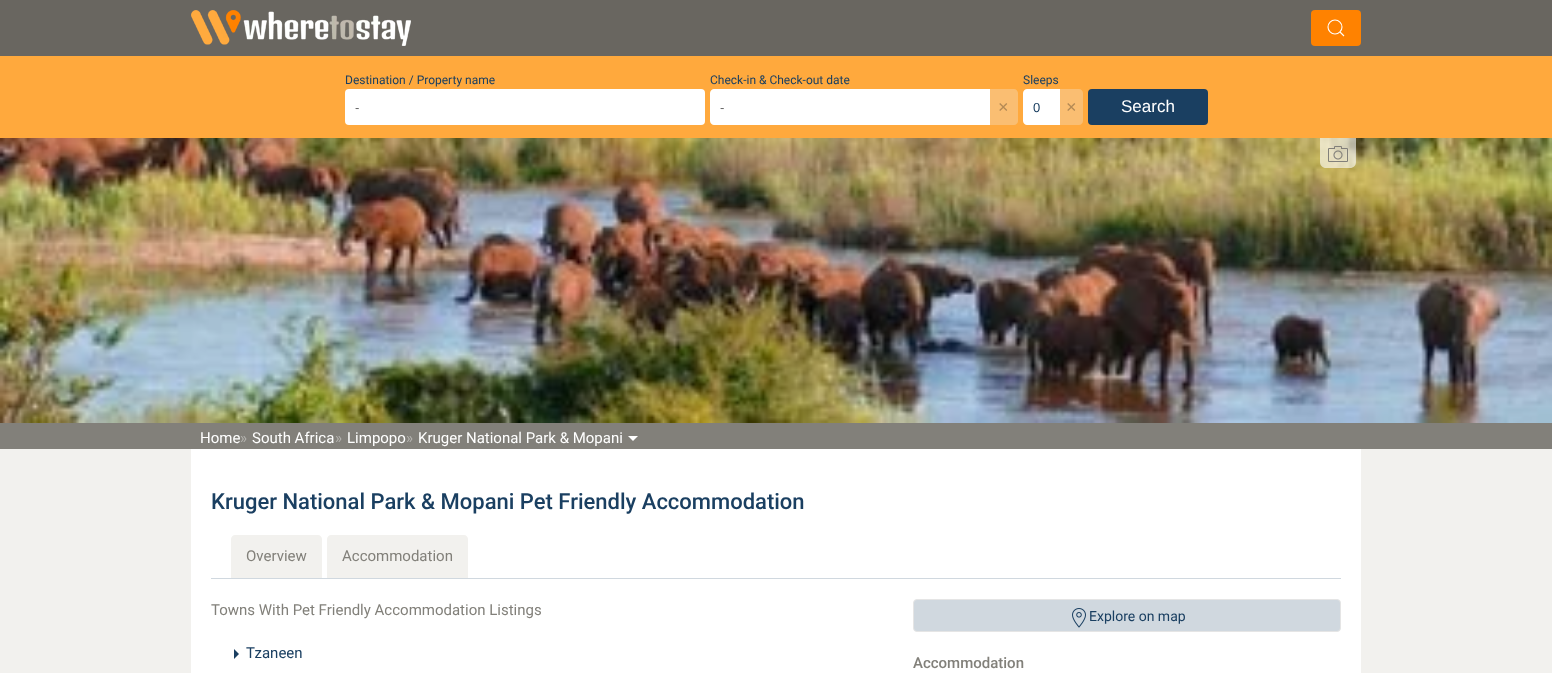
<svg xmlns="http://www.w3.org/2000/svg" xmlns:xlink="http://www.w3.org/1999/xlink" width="1552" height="673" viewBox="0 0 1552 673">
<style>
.cls-1{font:12px Roboto;fill:#1a3f61}
.cls-2{font:13px Liberation Sans;fill:#666666}
.cls-3{font:18px Liberation Sans;fill:#b48a55}
.cls-4{font:13px Liberation Sans;fill:#1a3f61}
.cls-5{font:17px Liberation Sans;fill:#ffffff}
.cls-6{font:15px Roboto;fill:#ffffff}
.cls-7{font:15px Roboto;fill:#b4b3af}
.cls-8{font:500 22px Roboto;fill:#1a3f61}
.cls-9{font:15px Roboto;fill:#82807a}
.cls-10{font:15px Roboto;fill:#1a3f61}
.cls-11{font:14px Roboto;fill:#1a3f61}
.cls-12{font:500 15px Roboto;fill:#82807a}
</style>
<rect width="100%" height="100%" fill="#f2f1ee"/>
<rect fill="#696660" x="0" y="0" width="1552" height="56"/>
<image xlink:href="image0.png" x="191" y="10" width="220" height="36"/>
<rect fill="#ff8200" x="1311" y="10" width="50" height="36" rx="4"/>
<circle fill="none" stroke="#ffffff" stroke-width="1.1" cx="1335" cy="27" r="7"/>
<path fill="none" stroke="#ffffff" stroke-width="1.1" d="M1340 32L1344 36Z"/>
<rect fill="#ffa93d" x="0" y="56" width="1552" height="82"/>
<rect fill="#ffffff" x="345" y="89" width="360" height="36" rx="4"/>
<path fill="#ffffff" d="M714 89H990V125H714C712 125 710 123 710 121V93C710 91 712 89 714 89Z"/>
<path fill="#fabe72" d="M990 89H1014C1016 89 1018 91 1018 93V121C1018 123 1016 125 1014 125H990Z"/>
<path fill="#ffffff" d="M1027 89H1060V125H1027C1025 125 1023 123 1023 121V93C1023 91 1025 89 1027 89Z"/>
<path fill="#fabe72" d="M1060 89H1079C1081 89 1083 91 1083 93V121C1083 123 1081 125 1079 125H1060Z"/>
<rect fill="#1a3f61" x="1088" y="89" width="120" height="36" rx="4"/>
<image xlink:href="image1.png" x="0" y="138" width="1552" height="285"/>
<path fill="#ffffff" fill-opacity="0.6" d="M1320 138H1356V162C1356 165.5 1353.5 168 1350 168H1326C1322.5 168 1320 165.5 1320 162Z"/>
<image xlink:href="image2.png" x="1328" y="146" width="20" height="16"/>
<rect fill="#82807a" x="0" y="423" width="1552" height="26"/>
<path fill="#ffffff" d="M628 436H638L633 441Z"/>
<rect fill="#ffffff" x="191" y="449" width="1170" height="224"/>
<rect fill="#d0d8df" x="211" y="578" width="1130" height="1"/>
<path fill="#f2f1ee" d="M235 535H318C320 535 322 537 322 539V578H231V539C231 537 233 535 235 535Z"/>
<path fill="#f2f1ee" d="M331 535H464C466 535 468 537 468 539V578H327V539C327 537 329 535 331 535Z"/>
<path fill="#1a3f61" d="M234 649L239 654L234 659Z"/>
<rect fill="#d0d8df" stroke="#e5e5e5" x="913.5" y="599.5" width="427" height="32" rx="3.5"/>
<image xlink:href="image3.png" x="1072" y="608" width="14" height="20"/>
<text class="cls-1" x="345" y="84">Destination / Property name</text>
<text class="cls-2" x="355" y="112">-</text>
<text class="cls-1" x="710" y="84">Check-in &amp; Check-out date</text>
<text class="cls-2" x="720" y="112">-</text>
<text class="cls-3" x="998" y="113">×</text>
<text class="cls-1" x="1023" y="84">Sleeps</text>
<text class="cls-4" x="1033" y="112">0</text>
<text class="cls-3" x="1066" y="113">×</text>
<text class="cls-5" x="1121" y="112">Search</text>
<text class="cls-6" x="200" y="443">Home</text>
<text class="cls-7" x="240" y="443">»</text>
<text class="cls-6" x="252" y="443">South Africa</text>
<text class="cls-7" x="335" y="443">»</text>
<text class="cls-6" x="347" y="443">Limpopo</text>
<text class="cls-7" x="406" y="443">»</text>
<text class="cls-6" x="418" y="443">Kruger National Park &amp; Mopani</text>
<text class="cls-8" x="211" y="509">Kruger National Park &amp; Mopani Pet Friendly Accommodation</text>
<text class="cls-9" x="246" y="561">Overview</text>
<text class="cls-9" x="342" y="561">Accommodation</text>
<text class="cls-9" x="211" y="615">Towns With Pet Friendly Accommodation Listings</text>
<text class="cls-10" x="246" y="658">Tzaneen</text>
<text class="cls-11" x="1089" y="621">Explore on map</text>
<text class="cls-12" x="913" y="668">Accommodation</text>
</svg>
